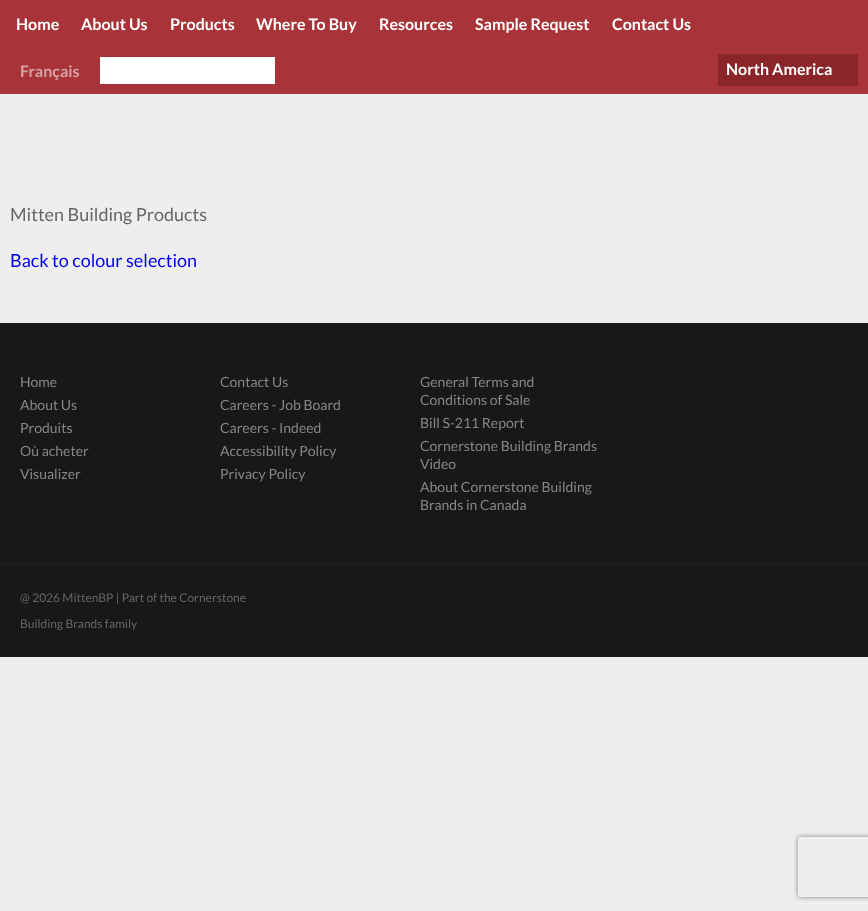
<svg xmlns="http://www.w3.org/2000/svg" xmlns:xlink="http://www.w3.org/1999/xlink" width="868" height="911" viewBox="0 0 868 911">
<style>
.cls-1{font:bold 16px Lato;fill:#ffffff}
.cls-2{font:bold 16px Lato;fill:#d8a3a5}
.cls-3{font:18px Lato;fill:#666666}
.cls-4{font:18px Lato;fill:#0000ee}
.cls-5{font:14px Lato;fill:#878787}
.cls-6{font:12px Lato;fill:#666666}
</style>
<defs>
<clipPath id="clip1"><path d="M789 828H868V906H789ZM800 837H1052C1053 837 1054 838 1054 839V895C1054 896 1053 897 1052 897H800C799 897 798 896 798 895V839C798 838 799 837 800 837Z" clip-rule="evenodd"/></clipPath>
</defs>
<rect width="100%" height="100%" fill="#eeeeee"/>
<rect fill="#a83338" x="0" y="0" width="868" height="94"/>
<rect fill="#ffffff" x="100" y="57" width="175" height="27"/>
<rect fill="#8a252a" x="718" y="54" width="140" height="32"/>
<rect fill="#181818" x="0" y="323" width="868" height="334"/>
<rect fill="#222222" x="0" y="564" width="868" height="1"/>
<g clip-path="url(#clip1)">
<rect fill="#808080" filter="blur(2.5px)" x="798" y="837" width="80" height="60" rx="2"/>
</g>
<text class="cls-1" x="16" y="30">Home</text>
<text class="cls-1" x="81" y="30">About Us</text>
<text class="cls-1" x="170" y="30">Products</text>
<text class="cls-1" x="256" y="30">Where To Buy</text>
<text class="cls-1" x="379" y="30">Resources</text>
<text class="cls-1" x="475" y="30">Sample Request</text>
<text class="cls-1" x="612" y="30">Contact Us</text>
<text class="cls-2" x="20" y="77">Français</text>
<text class="cls-1" x="726" y="75">North America</text>
<text class="cls-3" x="10" y="221">Mitten Building Products</text>
<text class="cls-4" x="10" y="267">Back to colour selection</text>
<text class="cls-5"><tspan x="20" y="387">Home</tspan><tspan x="20" y="410">About Us</tspan><tspan x="20" y="433">Produits</tspan><tspan x="20" y="456">Où acheter</tspan><tspan x="20" y="479">Visualizer</tspan></text>
<text class="cls-5"><tspan x="220" y="387">Contact Us</tspan><tspan x="220" y="410">Careers - Job Board</tspan><tspan x="220" y="433">Careers - Indeed</tspan><tspan x="220" y="456">Accessibility Policy</tspan><tspan x="220" y="479">Privacy Policy</tspan></text>
<text class="cls-5"><tspan x="420" y="387">General Terms and</tspan><tspan x="420" y="405">Conditions of Sale</tspan><tspan x="420" y="428">Bill S-211 Report</tspan><tspan x="420" y="451">Cornerstone Building Brands</tspan><tspan x="420" y="469">Video</tspan><tspan x="420" y="492">About Cornerstone Building</tspan><tspan x="420" y="510">Brands in Canada</tspan></text>
<text class="cls-6" x="20" y="602">@ 2026 MittenBP | Part of the Cornerstone</text>
<text class="cls-6" x="20" y="628">Building Brands family</text>
</svg>
